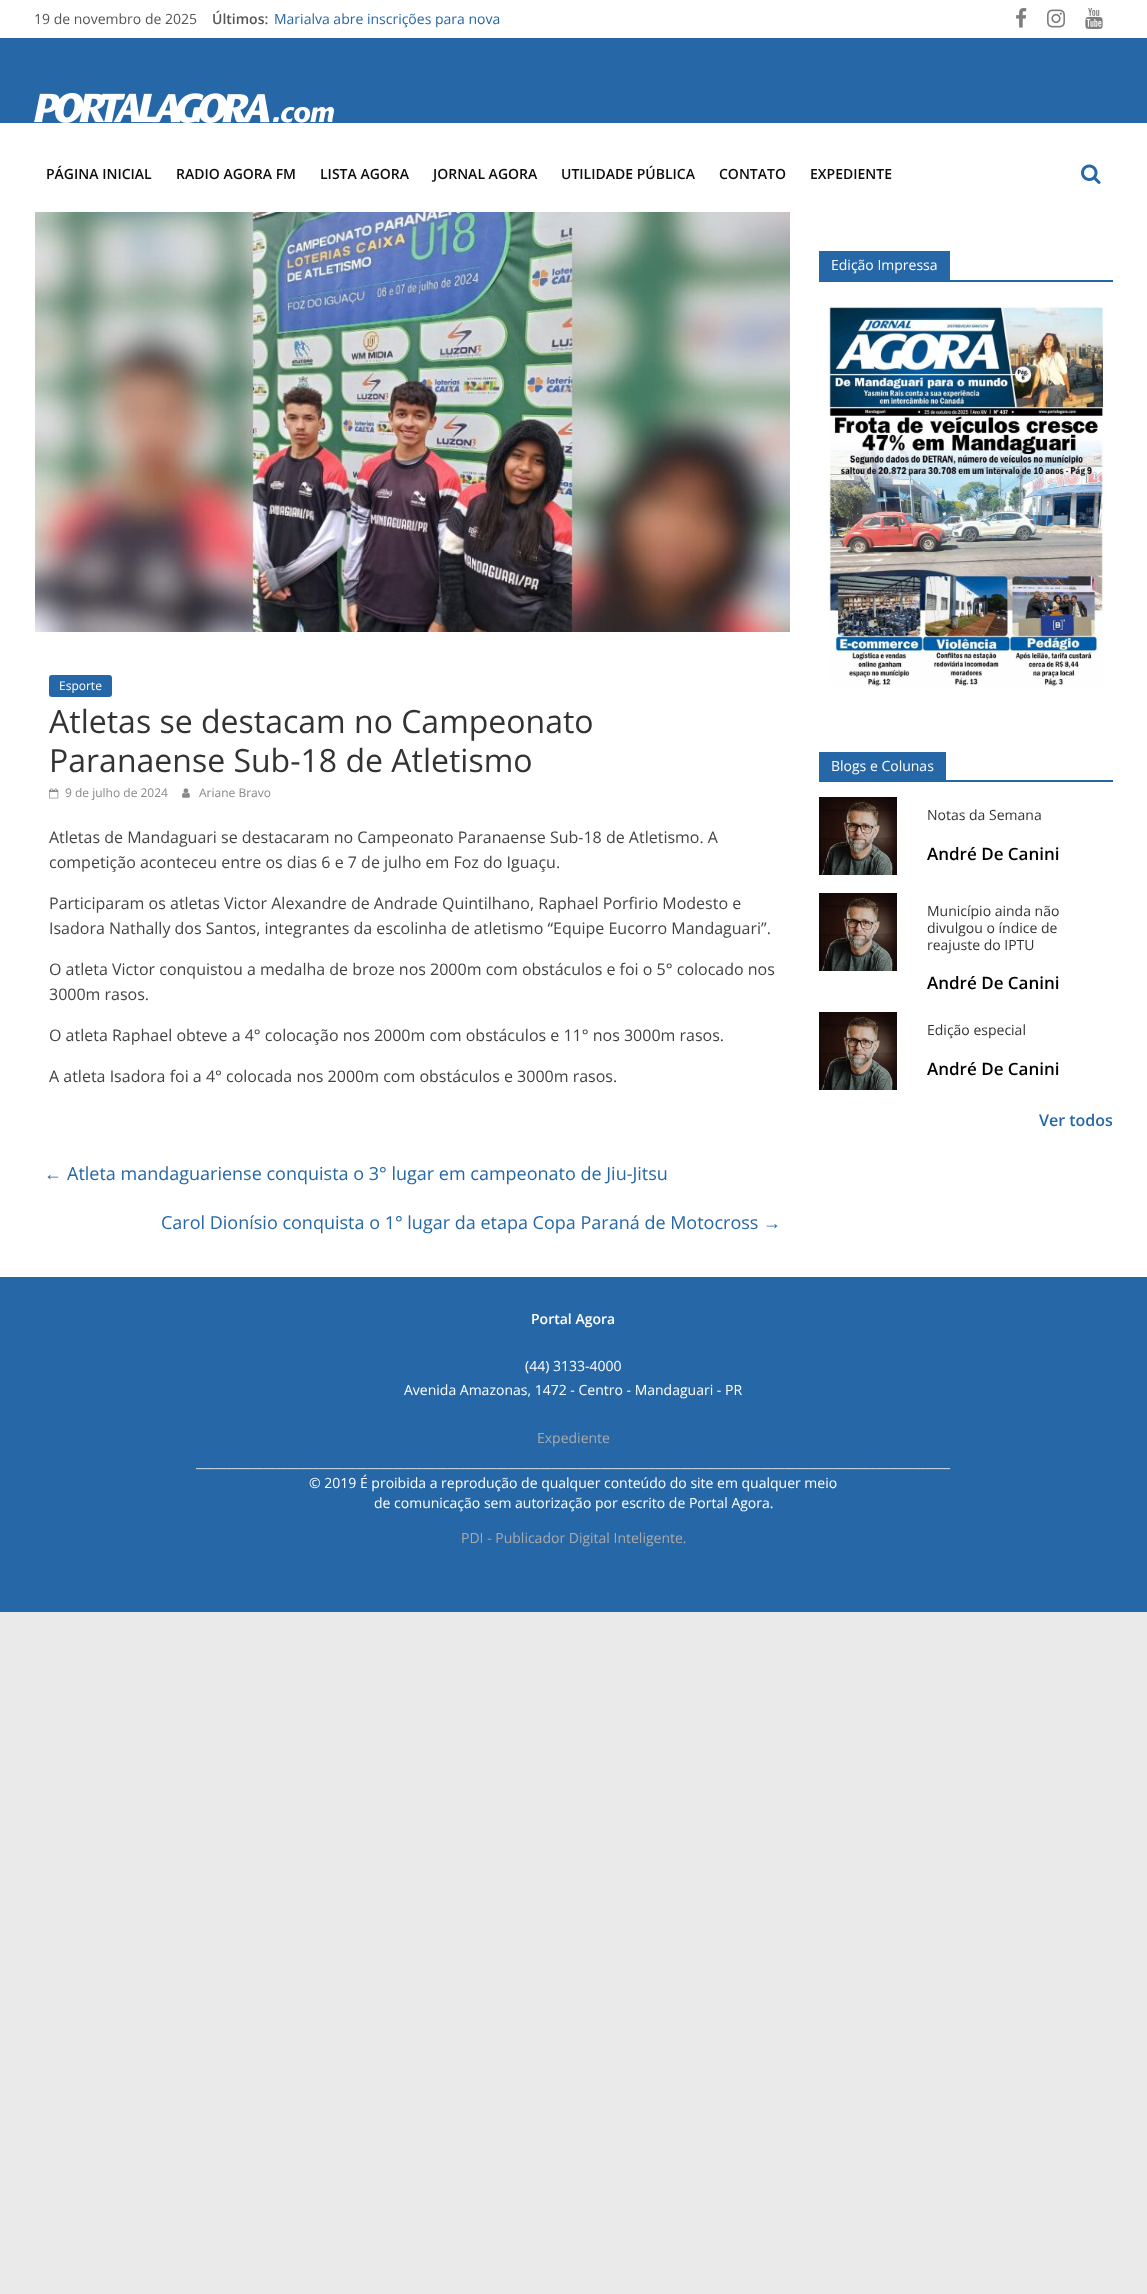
<svg xmlns="http://www.w3.org/2000/svg" xmlns:xlink="http://www.w3.org/1999/xlink" width="1147" height="2294" viewBox="0 0 1147 2294">
<style>
.cls-1{font:14px Open Sans;fill:#555555}
.cls-2{font:600 14px Open Sans;fill:#555555}
.cls-3{font:14px Open Sans;fill:#2667a7}
.cls-4{font:600 14px Open Sans;fill:#0c0c0c}
.cls-5{font:12px Open Sans;fill:#ffffff}
.cls-6{font:32px Open Sans;fill:#333333}
.cls-7{font:12px Open Sans;fill:#888888}
.cls-8{font:16px Open Sans;fill:#444444}
.cls-9{font:18px Liberation Serif;fill:#2667a7}
.cls-10{font:18px Open Sans;fill:#2667a7}
.cls-11{font:14px Open Sans;fill:#ffffff}
.cls-12{font:14px Open Sans;fill:#333333}
.cls-13{font:600 17px Open Sans;fill:#000000}
.cls-14{font:600 16px Open Sans;fill:#2667a7}
.cls-15{font:600 14px Open Sans;fill:#ffffff}
.cls-16{font:14px Open Sans;fill:#aaaaaa}
.cls-17{font:14px Open Sans;fill:#ededed}
</style>
<rect width="100%" height="100%" fill="#eaeaea"/>
<rect fill="#2667a7" x="0" y="38" width="1147" height="85"/>
<rect fill="#000000" fill-opacity="0.1" filter="blur(1px)" x="0" y="0" width="1147" height="38"/>
<rect fill="#ffffff" x="0" y="0" width="1147" height="38"/>
<image xlink:href="image0.png" x="1016" y="8" width="11" height="20"/>
<image xlink:href="image1.png" x="1047" y="9" width="18" height="19"/>
<image xlink:href="image2.png" x="1085" y="8" width="18" height="21"/>
<image xlink:href="image3.png" x="34" y="93" width="300" height="30"/>
<rect fill="#ffffff" x="0" y="123" width="1147" height="1154"/>
<image xlink:href="image4.png" x="1081" y="164" width="20" height="20"/>
<image xlink:href="image5.png" x="35" y="212" width="755" height="420"/>
<rect fill="#2667a7" x="49" y="675" width="63" height="22" rx="3"/>
<image xlink:href="image6.png" x="49" y="788" width="10" height="11"/>
<image xlink:href="image7.png" x="182" y="788" width="8" height="10"/>
<rect fill="#2667a7" x="819" y="280" width="294" height="2"/>
<rect fill="#2667a7" x="819" y="251" width="131" height="29"/>
<image xlink:href="image8.png" x="825" y="306" width="282" height="381"/>
<rect fill="#2667a7" x="819" y="780" width="294" height="2"/>
<rect fill="#2667a7" x="819" y="752" width="127" height="28"/>
<image xlink:href="image9.png" x="819" y="797" width="78" height="78"/>
<image xlink:href="image9.png" x="819" y="893" width="78" height="78"/>
<image xlink:href="image9.png" x="819" y="1012" width="78" height="78"/>
<rect fill="#2667a7" x="0" y="1277" width="1147" height="335"/>
<rect fill="#5a5d62" x="537" y="1447" width="73" height="1"/>
<rect fill="#5a5d62" x="461" y="1547" width="225" height="1"/>
<text class="cls-1" x="34" y="24">19 de novembro de 2025</text>
<text class="cls-2" x="212" y="24">Últimos:</text>
<text class="cls-3" x="274" y="24">Marialva abre inscrições para nova</text>
<text class="cls-4" x="46" y="179">PÁGINA INICIAL</text>
<text class="cls-4" x="176" y="179">RADIO AGORA FM</text>
<text class="cls-4" x="320" y="179">LISTA AGORA</text>
<text class="cls-4" x="433" y="179">JORNAL AGORA</text>
<text class="cls-4" x="561" y="179">UTILIDADE PÚBLICA</text>
<text class="cls-4" x="719" y="179">CONTATO</text>
<text class="cls-4" x="810" y="179">EXPEDIENTE</text>
<text class="cls-5" x="59" y="690">Esporte</text>
<text class="cls-6"><tspan x="49" y="733">Atletas se destacam no Campeonato</tspan><tspan x="49" y="772">Paranaense Sub-18 de Atletismo</tspan></text>
<text class="cls-7" x="65" y="797">9 de julho de 2024</text>
<text class="cls-7" x="199" y="797">Ariane Bravo</text>
<text class="cls-8"><tspan x="49" y="843">Atletas de Mandaguari se destacaram no Campeonato Paranaense Sub-18 de Atletismo. A</tspan><tspan x="49" y="868">competição aconteceu entre os dias 6 e 7 de julho em Foz do Iguaçu.</tspan></text>
<text class="cls-8"><tspan x="49" y="909">Participaram os atletas Victor Alexandre de Andrade Quintilhano, Raphael Porfirio Modesto e</tspan><tspan x="49" y="934">Isadora Nathally dos Santos, integrantes da escolinha de atletismo “Equipe Eucorro Mandaguari”.</tspan></text>
<text class="cls-8"><tspan x="49" y="975">O atleta Victor conquistou a medalha de broze nos 2000m com obstáculos e foi o 5° colocado nos</tspan><tspan x="49" y="1000">3000m rasos.</tspan></text>
<text class="cls-8" x="49" y="1041">O atleta Raphael obteve a 4° colocação nos 2000m com obstáculos e 11° nos 3000m rasos.</text>
<text class="cls-8" x="49" y="1082">A atleta Isadora foi a 4° colocada nos 2000m com obstáculos e 3000m rasos.</text>
<text class="cls-9" x="44" y="1180">←</text>
<text class="cls-10" x="67" y="1180">Atleta mandaguariense conquista o 3° lugar em campeonato de Jiu-Jitsu</text>
<text class="cls-10" x="161" y="1229">Carol Dionísio conquista o 1° lugar da etapa Copa Paraná de Motocross</text>
<text class="cls-9" x="763" y="1229">→</text>
<text class="cls-11" x="831" y="270">Edição Impressa</text>
<text class="cls-11" x="831" y="771">Blogs e Colunas</text>
<text class="cls-12" x="927" y="820">Notas da Semana</text>
<text class="cls-13" x="927" y="860">André De Canini</text>
<text class="cls-12"><tspan x="927" y="916">Município ainda não</tspan><tspan x="927" y="933">divulgou o índice de</tspan><tspan x="927" y="950">reajuste do IPTU</tspan></text>
<text class="cls-13" x="927" y="989">André De Canini</text>
<text class="cls-12" x="927" y="1035">Edição especial</text>
<text class="cls-13" x="927" y="1075">André De Canini</text>
<text class="cls-14" x="1039" y="1126">Ver todos</text>
<text class="cls-15" x="531" y="1324">Portal Agora</text>
<text class="cls-11" x="525" y="1371">(44) 3133-4000</text>
<text class="cls-11" x="404" y="1395">Avenida Amazonas, 1472 - Centro - Mandaguari - PR</text>
<text class="cls-16" x="537" y="1443">Expediente</text>
<text class="cls-17" x="196" y="1467">___________________________________________________________________________________________________________________________</text>
<text class="cls-11" x="309" y="1488">© 2019 É proibida a reprodução de qualquer conteúdo do site em qualquer meio</text>
<text class="cls-11" x="374" y="1508">de comunicação sem autorização por escrito de Portal Agora.</text>
<text class="cls-16" x="461" y="1543">PDI - Publicador Digital Inteligente.</text>
</svg>
